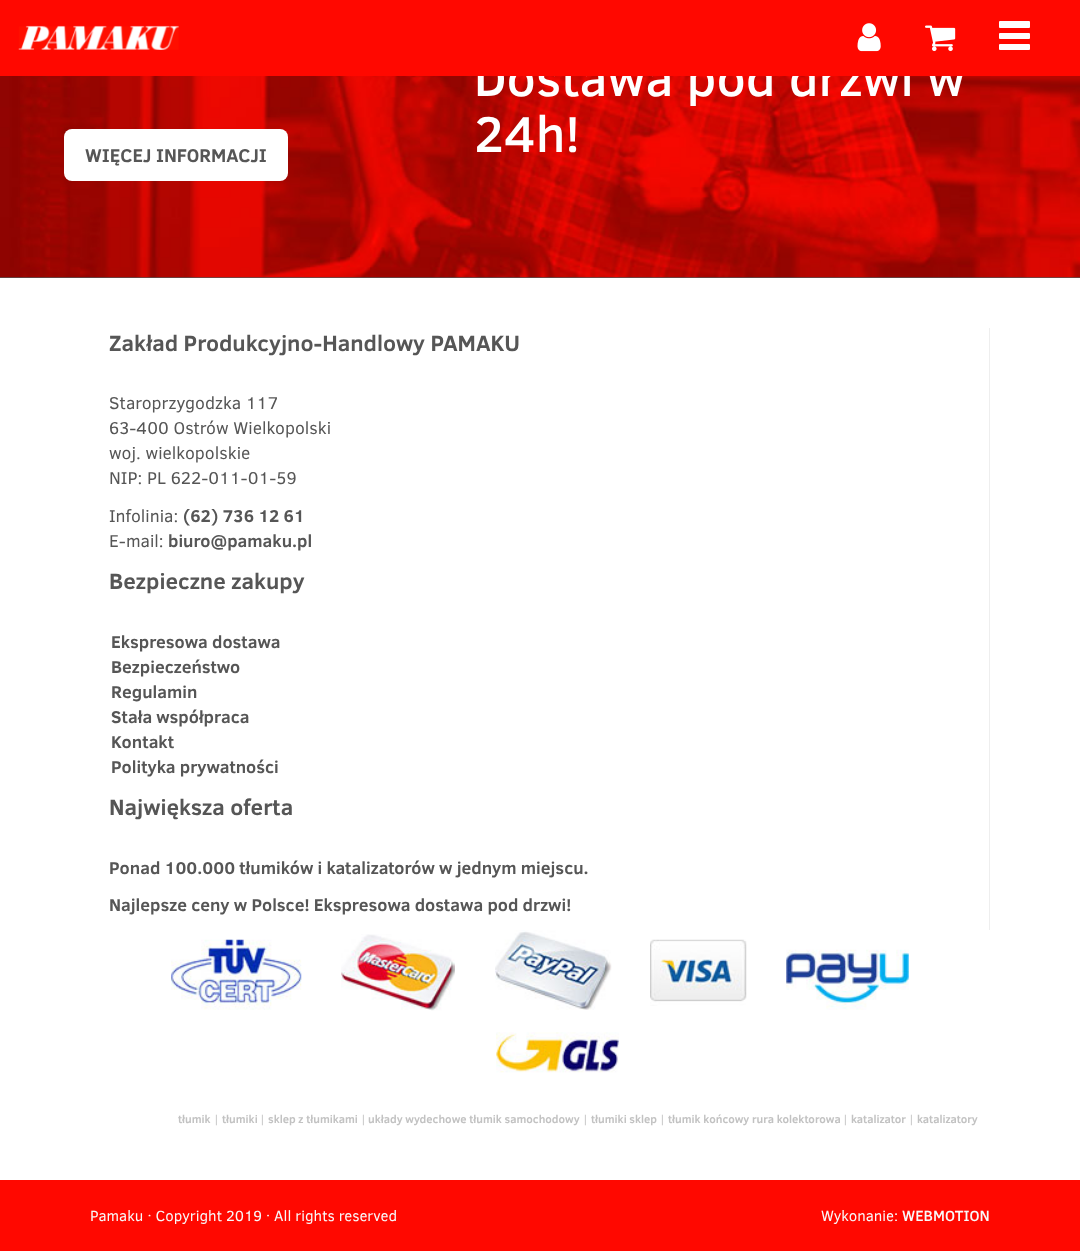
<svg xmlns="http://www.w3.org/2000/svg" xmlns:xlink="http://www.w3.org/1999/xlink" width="1080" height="1251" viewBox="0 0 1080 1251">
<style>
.cls-1{font:500 51.25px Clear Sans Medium;fill:#ffffff}
.cls-2{font:bold 18.75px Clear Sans;fill:#565656}
.cls-3{font:bold 22.5px Clear Sans;fill:#565656}
.cls-4{font:17.5px Clear Sans;fill:#565656}
.cls-5{font:bold 17.5px Clear Sans;fill:#565656}
.cls-6{font:bold 11.25px Clear Sans;fill:#c2c2c2}
.cls-7{font:11.25px Clear Sans;fill:#c2c2c2}
.cls-8{font:15px Clear Sans;fill:#f9f9f9}
.cls-9{font:500 15px Clear Sans Medium;fill:#f9f9f9}
</style>
<rect width="100%" height="100%" fill="#ffffff"/>
<rect fill="#555555" x="0" y="277" width="1080" height="1"/>
<image xlink:href="image3.png" x="0" y="76" width="1080" height="202"/>
<rect fill="#ffffff" x="64" y="129" width="224" height="52" rx="8"/>
<rect fill="#eeeeee" x="989" y="328" width="1" height="602"/>
<image xlink:href="image4.png" x="171" y="939" width="131" height="71"/>
<image xlink:href="image5.png" x="341" y="934" width="114" height="77"/>
<image xlink:href="image6.png" x="495" y="930" width="117" height="80"/>
<image xlink:href="image7.png" x="650" y="939" width="97" height="67"/>
<image xlink:href="image8.png" x="786" y="949" width="123" height="61"/>
<image xlink:href="image9.png" x="496" y="1032" width="123" height="41"/>
<rect fill="#ff0800" x="0" y="1180" width="1080" height="71"/>
<text class="cls-1" x="474" y="96">Dostawa pod drzwi w</text>
<rect fill="#ff0800" x="0" y="0" width="1080" height="76"/>
<image xlink:href="image1.png" x="857" y="23" width="24" height="29"/>
<image xlink:href="image2.png" x="925" y="25" width="31" height="27"/>
<rect fill="#ffffff" x="999" y="44" width="31" height="6" rx="1"/>
<rect fill="#ffffff" x="999" y="33" width="31" height="6" rx="1"/>
<rect fill="#ffffff" x="999" y="21" width="31" height="7" rx="1"/>
<image xlink:href="image0.png" x="18" y="25" width="161" height="25"/>
<text class="cls-1" x="474" y="152">24h!</text>
<text class="cls-2" x="85" y="162">WIĘCEJ INFORMACJI</text>
<text class="cls-3" x="109" y="351">Zakład Produkcyjno-Handlowy PAMAKU</text>
<text class="cls-4"><tspan x="109" y="409">Staroprzygodzka 117</tspan><tspan x="109" y="434">63-400 Ostrów Wielkopolski</tspan><tspan x="109" y="459">woj. wielkopolskie</tspan><tspan x="109" y="484">NIP: PL 622-011-01-59</tspan></text>
<text class="cls-4" x="109" y="522">Infolinia:</text>
<text class="cls-5" x="183" y="522">(62) 736 12 61</text>
<text class="cls-4" x="109" y="547">E-mail:</text>
<text class="cls-5" x="168" y="547">biuro@pamaku.pl</text>
<text class="cls-3" x="109" y="589">Bezpieczne zakupy</text>
<text class="cls-5"><tspan x="111" y="648">Ekspresowa dostawa</tspan><tspan x="111" y="673">Bezpieczeństwo</tspan><tspan x="111" y="698">Regulamin</tspan><tspan x="111" y="723">Stała współpraca</tspan><tspan x="111" y="748">Kontakt</tspan><tspan x="111" y="773">Polityka prywatności</tspan></text>
<text class="cls-3" x="109" y="815">Największa oferta</text>
<text class="cls-5" x="109" y="874">Ponad 100.000 tłumików i katalizatorów w jednym miejscu.</text>
<text class="cls-5" x="109" y="911">Najlepsze ceny w Polsce! Ekspresowa dostawa pod drzwi!</text>
<text class="cls-6" x="178" y="1123">tłumik</text>
<text class="cls-7" x="214" y="1123">|</text>
<text class="cls-6" x="222" y="1123">tłumiki</text>
<text class="cls-7" x="260" y="1123">|</text>
<text class="cls-6" x="268" y="1123">sklep z tłumikami</text>
<text class="cls-7" x="361" y="1123">|</text>
<text class="cls-6" x="368" y="1123">układy wydechowe tłumik samochodowy</text>
<text class="cls-7" x="583" y="1123">|</text>
<text class="cls-6" x="591" y="1123">tłumiki sklep</text>
<text class="cls-7" x="660" y="1123">|</text>
<text class="cls-6" x="668" y="1123">tłumik końcowy rura kolektorowa</text>
<text class="cls-7" x="843" y="1123">|</text>
<text class="cls-6" x="851" y="1123">katalizator</text>
<text class="cls-7" x="909" y="1123">|</text>
<text class="cls-6" x="917" y="1123">katalizatory</text>
<text class="cls-8" x="90" y="1221">Pamaku · Copyright 2019 · All rights reserved</text>
<text class="cls-8" x="821" y="1221">Wykonanie:</text>
<text class="cls-9" x="902" y="1221">WEBMOTION</text>
</svg>
